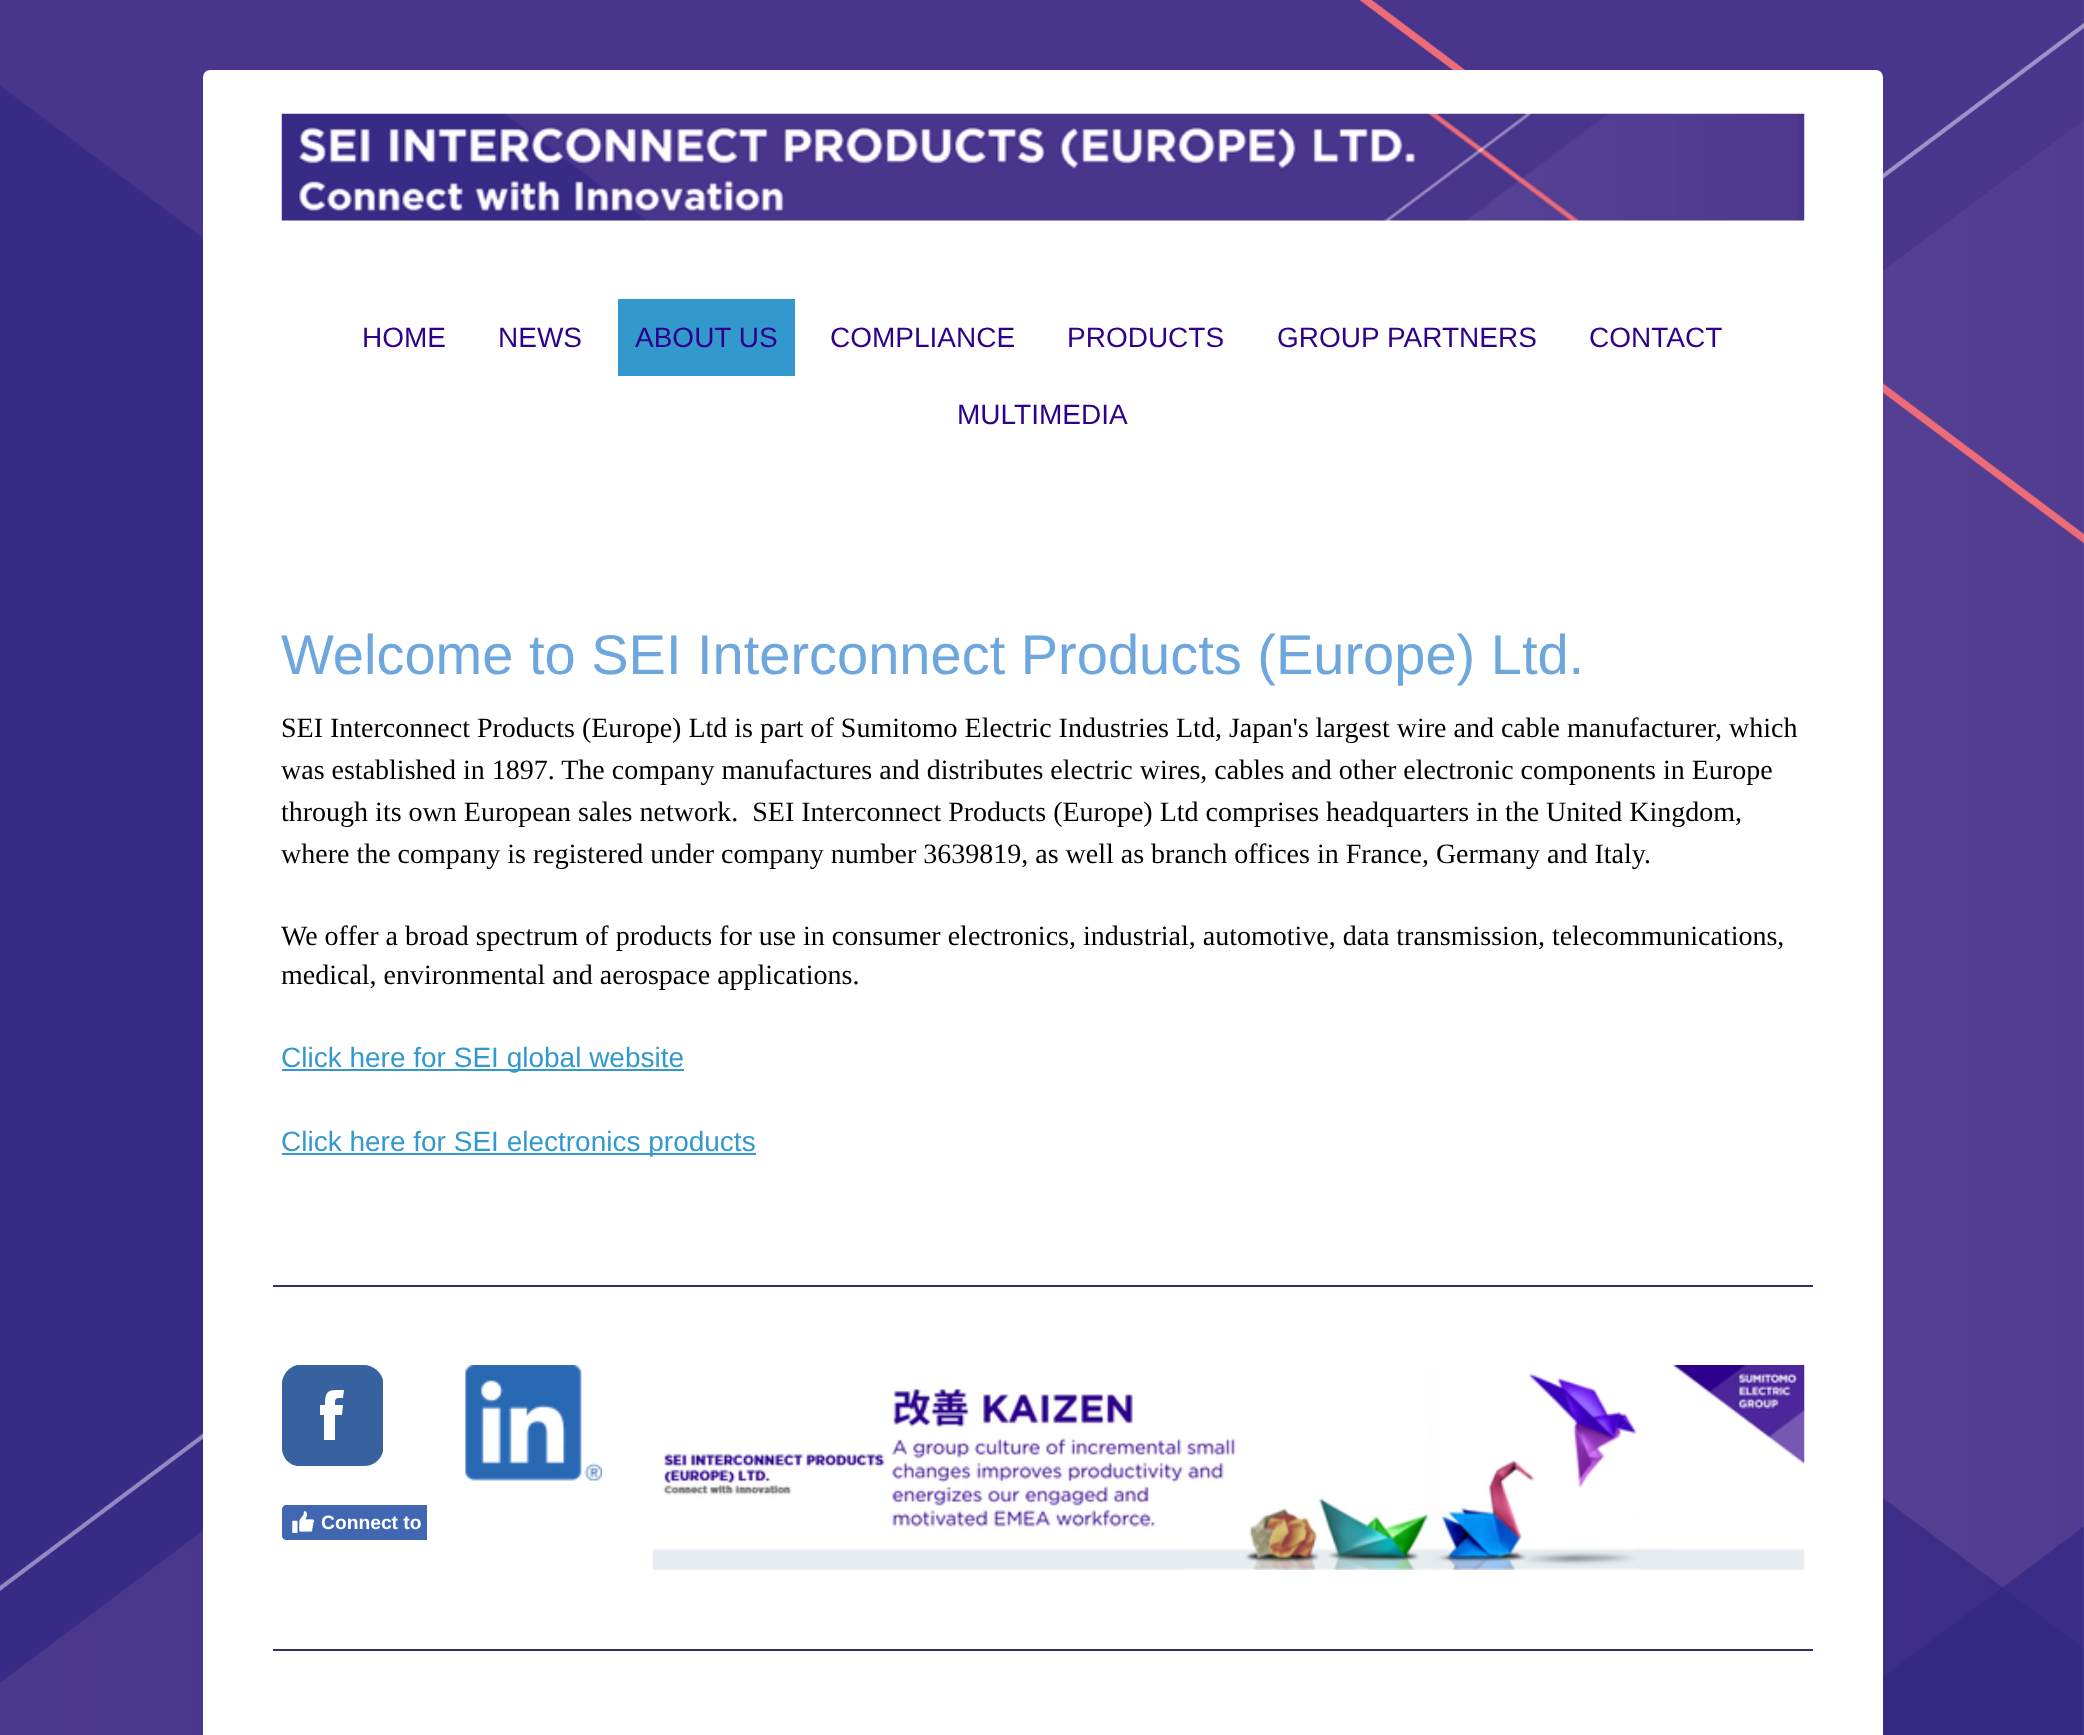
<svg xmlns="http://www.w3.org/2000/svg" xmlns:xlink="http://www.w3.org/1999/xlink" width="2084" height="1735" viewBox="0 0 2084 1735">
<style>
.cls-1{font:28px Liberation Sans;fill:#2e008b}
.cls-2{font:56px Liberation Sans;fill:#6da7de}
.cls-3{font:28px Liberation Serif;fill:#000000}
.cls-4{font:28px Liberation Sans;fill:#3399cc}
.cls-5{font:bold 19.25px Liberation Sans;fill:#ffffff}
</style>
<defs>
<clipPath id="clip1"><rect x="273" y="1496" width="154" height="53"/></clipPath>
</defs>
<rect width="100%" height="100%" fill="#ffffff"/>
<image xlink:href="image0.png" x="0" y="0" width="2084" height="1735"/>
<rect fill="#ffffff" x="203" y="70" width="1680" height="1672" rx="7"/>
<image xlink:href="image1.png" x="281" y="113" width="1524" height="108"/>
<rect fill="#3399cc" x="618" y="299" width="177" height="77"/>
<rect fill="#3399cc" x="282" y="1069" width="402" height="2"/>
<rect fill="#3399cc" x="282" y="1153" width="474" height="2"/>
<rect fill="#333366" x="273" y="1285" width="1540" height="2"/>
<path fill="#38619f" d="M364 1466H297C289 1465 283 1458 282 1450V1382C283 1374 289 1367 297 1365H364C373 1365 381 1372 383 1380V1395V1451C381 1460 373 1466 364 1466Z"/>
<path fill="#ffffff" d="M344 1390C329 1390 325 1389 325 1405H320V1415H324V1440H335V1415H342L343 1405H335C335 1398 335 1398 343 1398Z"/>
<path fill="#4267b2" d="M287 1505H427V1540H287C284 1540 282 1538 282 1535V1510C282 1507 284 1505 287 1505Z"/>
<g clip-path="url(#clip1)">
<rect fill="none" stroke="#4267b2" stroke-width="2" x="283" y="1506" width="239" height="33" rx="4"/>
</g>
<image xlink:href="image2.png" x="292" y="1511" width="23" height="22"/>
<image xlink:href="image3.png" x="465" y="1365" width="137" height="116"/>
<image xlink:href="image4.png" x="652" y="1365" width="1153" height="205"/>
<rect fill="#333366" x="273" y="1649" width="1540" height="2"/>
<text class="cls-1" x="362" y="347">HOME</text>
<text class="cls-1" x="498" y="347">NEWS</text>
<text class="cls-1" x="635" y="347">ABOUT US</text>
<text class="cls-1" x="830" y="347">COMPLIANCE</text>
<text class="cls-1" x="1067" y="347">PRODUCTS</text>
<text class="cls-1" x="1277" y="347">GROUP PARTNERS</text>
<text class="cls-1" x="1589" y="347">CONTACT</text>
<text class="cls-1" x="957" y="424">MULTIMEDIA</text>
<text class="cls-2" x="281" y="674">Welcome to SEI Interconnect Products (Europe) Ltd.</text>
<text class="cls-3" xml:space="preserve"><tspan x="281" y="737">SEI Interconnect Products (Europe) Ltd is part of Sumitomo Electric Industries Ltd, Japan's largest wire and cable manufacturer, which</tspan><tspan x="281" y="779">was established in 1897. The company manufactures and distributes electric wires, cables and other electronic components in Europe</tspan><tspan x="281" y="821">through its own European sales network.  SEI Interconnect Products (Europe) Ltd comprises headquarters in the United Kingdom,</tspan><tspan x="281" y="863">where the company is registered under company number 3639819, as well as branch offices in France, Germany and Italy.</tspan></text>
<text class="cls-3"><tspan x="281" y="945">We offer a broad spectrum of products for use in consumer electronics, industrial, automotive, data transmission, telecommunications,</tspan><tspan x="281" y="984">medical, environmental and aerospace applications.</tspan></text>
<text class="cls-4" x="281" y="1067">Click here for SEI global website</text>
<text class="cls-4" x="281" y="1151">Click here for SEI electronics products</text>
<text class="cls-5" x="321" y="1529">Connect to</text>
</svg>
